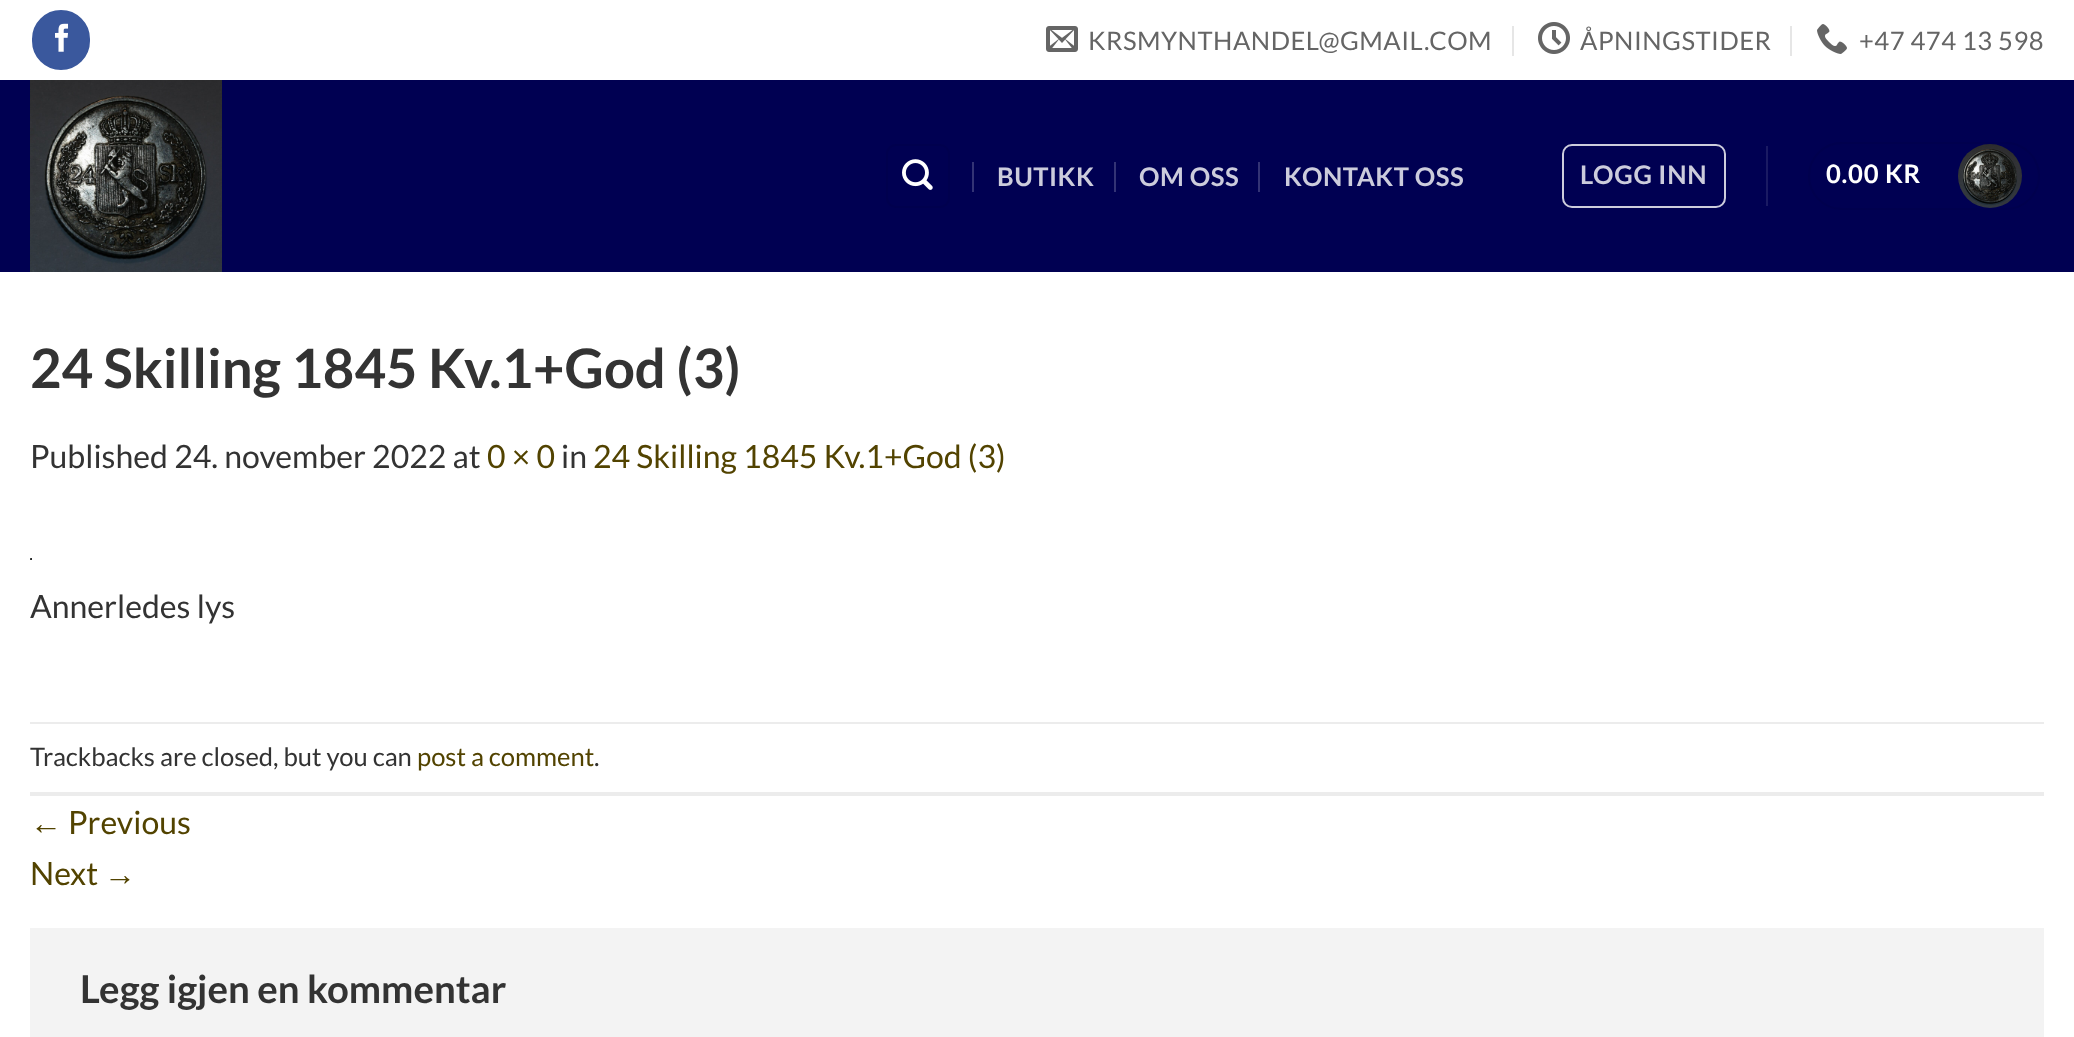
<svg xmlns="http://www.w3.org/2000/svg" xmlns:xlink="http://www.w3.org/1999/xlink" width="2074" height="1037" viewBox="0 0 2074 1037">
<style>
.cls-1{font:25.6px Lato;letter-spacing:0.5px;fill:#656565}
.cls-2{font:bold 25.6px Lato;letter-spacing:0.5px;fill:#ccccdc}
.cls-3{font:bold 25.6px Lato;letter-spacing:0.75px;fill:#ccccdc}
.cls-4{font:bold 25.6px Lato;letter-spacing:0.75px;fill:#ffffff}
.cls-5{font:bold 54.4px Lato;fill:#333333}
.cls-6{font:32px Lato;fill:#333333}
.cls-7{font:32px Lato;fill:#524300}
.cls-8{font:25.6px Lato;fill:#333333}
.cls-9{font:25.6px Lato;fill:#524300}
.cls-10{font:32px Liberation Sans;fill:#524300}
.cls-11{font:bold 38.4px Lato;fill:#333333}
</style>
<rect width="100%" height="100%" fill="#ffffff"/>
<rect fill="#3a589d" stroke="#3a589d" stroke-width="2" x="33" y="11" width="56" height="58" rx="28"/>
<image xlink:href="image0.png" x="55" y="23" width="14" height="29"/>
<image xlink:href="image1.png" x="1046" y="26" width="32" height="26"/>
<rect fill="#e6e6e6" x="1512" y="26" width="2" height="30"/>
<image xlink:href="image2.png" x="1538" y="22" width="32" height="32"/>
<rect fill="#e6e6e6" x="1790" y="26" width="2" height="30"/>
<image xlink:href="image3.png" x="1817" y="24" width="30" height="30"/>
<rect fill="#000052" x="0" y="80" width="2074" height="192"/>
<image xlink:href="image4.png" x="30" y="80" width="192" height="192"/>
<rect fill="none" stroke="#00004e" stroke-width="2" x="887" y="145" width="62" height="62" rx="9"/>
<image xlink:href="image5.png" x="902" y="159" width="31" height="31"/>
<rect fill="#333375" x="972" y="162" width="2" height="30"/>
<rect fill="#333375" x="1114" y="162" width="2" height="30"/>
<rect fill="#333375" x="1258" y="162" width="2" height="30"/>
<rect fill="none" stroke="#ccccdc" stroke-width="2" x="1563" y="145" width="162" height="62" rx="9"/>
<rect fill="#1a1a63" x="1766" y="146" width="2" height="60"/>
<rect fill="none" stroke="#00004e" stroke-width="2" x="1809" y="143" width="230" height="66" rx="33"/>
<image xlink:href="image6.png" x="1958" y="144" width="64" height="64"/>
<image xlink:href="image7.png" x="30" y="558" width="2" height="2"/>
<rect fill="#ececec" x="30" y="722" width="2014" height="2"/>
<rect fill="#ececec" x="30" y="792" width="2014" height="4"/>
<rect fill="#f3f3f3" x="30" y="928" width="2014" height="109"/>
<text class="cls-1" x="1088" y="50">KRSMYNTHANDEL@GMAIL.COM</text>
<text class="cls-1" x="1580" y="50">ÅPNINGSTIDER</text>
<text class="cls-1" x="1859" y="50">+47 474 13 598</text>
<text class="cls-2" x="997" y="186">BUTIKK</text>
<text class="cls-2" x="1139" y="186">OM OSS</text>
<text class="cls-2" x="1284" y="186">KONTAKT OSS</text>
<text class="cls-3" x="1580" y="184">LOGG INN</text>
<text class="cls-4" x="1826" y="183">0.00 KR</text>
<text class="cls-5" x="30" y="388">24 Skilling 1845 Kv.1+God (3)</text>
<text class="cls-6" x="30" y="468">Published 24. november 2022 at</text>
<text class="cls-7" x="487" y="468">0 × 0</text>
<text class="cls-6" x="561" y="468">in</text>
<text class="cls-7" x="593" y="468">24 Skilling 1845 Kv.1+God (3)</text>
<text class="cls-6" x="30" y="618">Annerledes lys</text>
<text class="cls-8" x="30" y="766">Trackbacks are closed, but you can</text>
<text class="cls-9" x="417" y="766">post a comment</text>
<text class="cls-8" x="594" y="766">.</text>
<text class="cls-10" x="30" y="834">←</text>
<text class="cls-7" x="68" y="834">Previous</text>
<text class="cls-7" x="30" y="885">Next</text>
<text class="cls-10" x="104" y="885">→</text>
<text class="cls-11" x="80" y="1003">Legg igjen en kommentar</text>
</svg>
